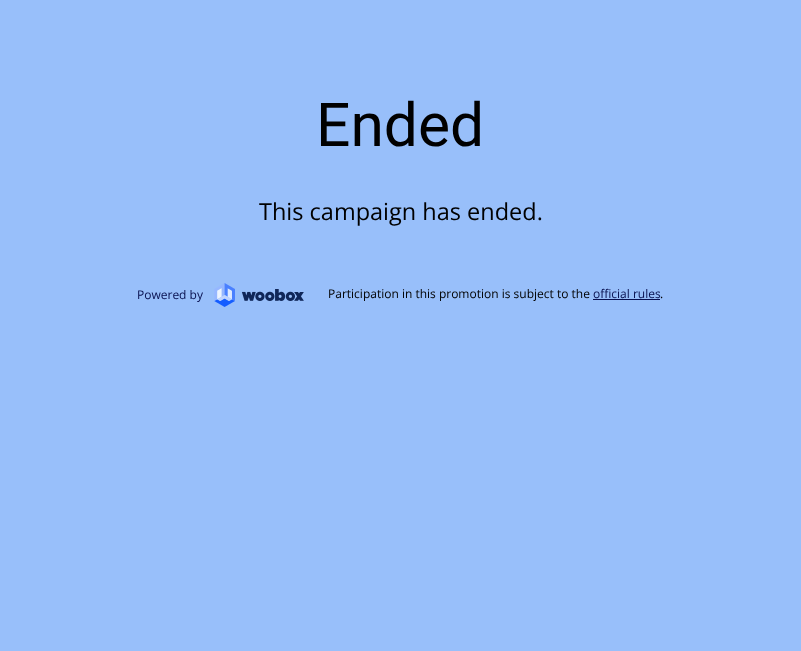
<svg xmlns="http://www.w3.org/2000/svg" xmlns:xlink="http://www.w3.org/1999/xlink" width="801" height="651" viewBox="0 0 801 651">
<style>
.cls-1{font:60.5px Roboto;fill:#000000}
.cls-2{font:23.5px Open Sans;fill:#000000}
.cls-3{font:12px Open Sans;fill:#08104f}
.cls-4{font:12px Open Sans;fill:#000000}
</style>
<rect width="100%" height="100%" fill="#98bffa"/>
<image xlink:href="image0.png" x="214" y="283" width="90" height="24"/>
<rect fill="#08104f" x="593" y="299" width="67" height="1"/>
<text class="cls-1" x="316" y="146">Ended</text>
<text class="cls-2" x="259" y="220">This campaign has ended.</text>
<text class="cls-3" x="137" y="299">Powered by</text>
<text class="cls-4" x="328" y="298">Participation in this promotion is subject to the</text>
<text class="cls-3" x="593" y="298">official rules</text>
<text class="cls-4" x="660" y="298">.</text>
</svg>
